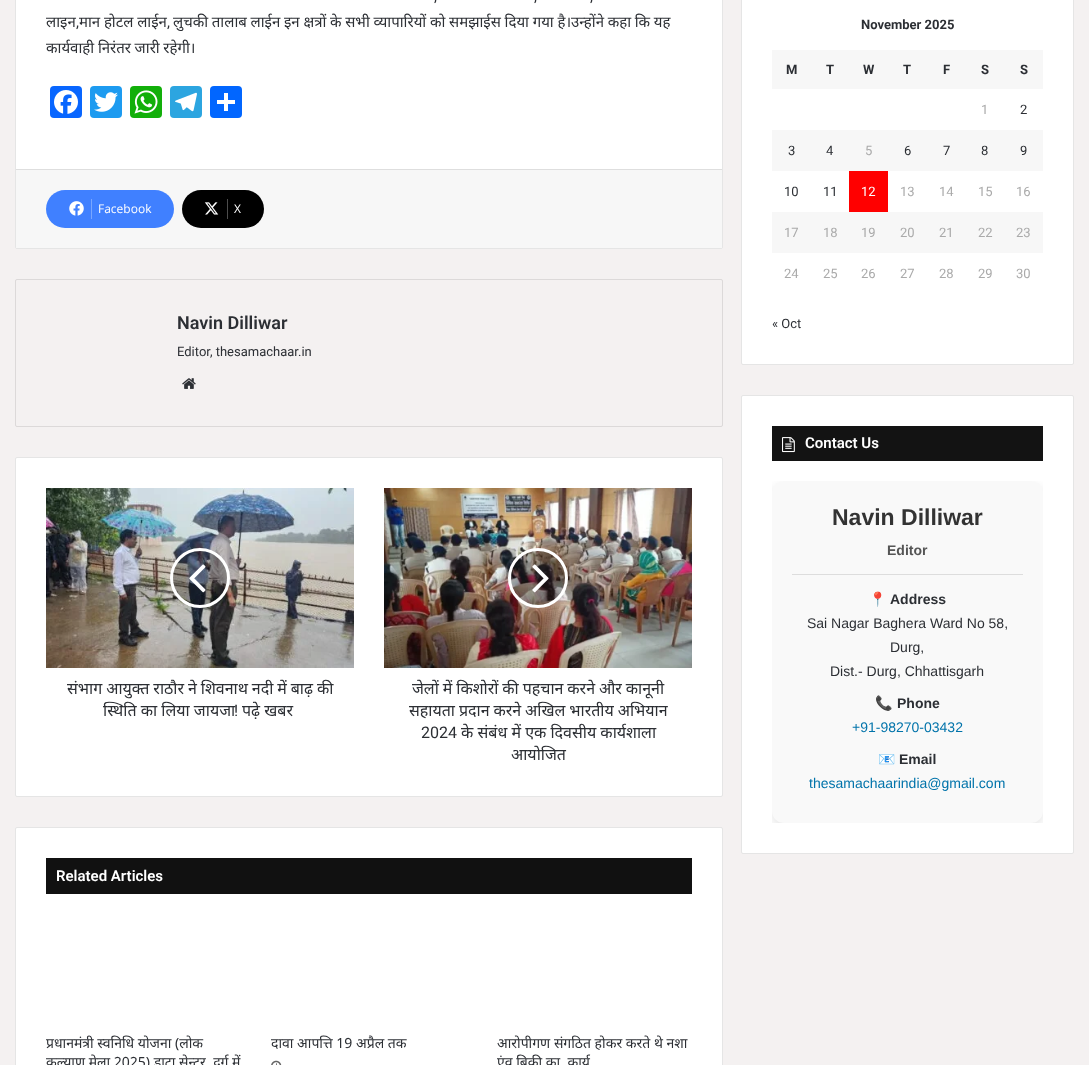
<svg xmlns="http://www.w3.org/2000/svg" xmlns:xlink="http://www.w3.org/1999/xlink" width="1089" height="1065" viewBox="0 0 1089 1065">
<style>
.cls-1{font:15px Roboto;fill:#2c2f34}
.cls-2{font:15px Noto Sans;fill:#2c2f34}
.cls-3{font:12px Open Sans;fill:#ffffff}
.cls-4{font:600 18px Roboto;fill:#2c2f34}
.cls-5{font:13px Roboto;fill:#2c2f34}
.cls-6{font:16px Noto Sans;fill:#2c2f34}
.cls-7{font:16px Roboto;fill:#2c2f34}
.cls-8{font:600 15px Roboto;fill:#ffffff}
.cls-9{font:14px Noto Sans;fill:#2c2f34}
.cls-10{font:bold 13px Roboto;fill:#2c2f34}
.cls-11{font:13px Roboto;fill:#aaaaaa}
.cls-12{font:13px Roboto;fill:#ffffff}
.cls-13{font:bold 23px Liberation Sans;fill:#333333}
.cls-14{font:bold 14px Liberation Sans;fill:#555555}
.cls-15{font:14px Noto Color Emoji;fill:#2c2f34}
.cls-16{font:bold 14px Liberation Sans;fill:#2c2f34}
.cls-17{font:14px Liberation Sans;fill:#2c2f34}
.cls-18{font:14px Liberation Sans;fill:#0073aa}
</style>
<defs>
<clipPath id="clip1"><rect x="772" y="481" width="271" height="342"/></clipPath>
</defs>
<rect width="100%" height="100%" fill="#f4f1f1"/>
<rect fill="#ffffff" stroke="#e5e5e5" x="15.5" y="-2.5" width="707" height="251" rx="1.5"/>
<rect fill="#0866ff" x="50" y="86" width="32" height="32" rx="4"/>
<image xlink:href="image0.png" x="54" y="90" width="24" height="24"/>
<rect fill="#1d9bf0" x="90" y="86" width="32" height="32" rx="4"/>
<image xlink:href="image1.png" x="94" y="92" width="24" height="20"/>
<rect fill="#12af0a" x="130" y="86" width="32" height="32" rx="4"/>
<image xlink:href="image2.png" x="134" y="90" width="24" height="24"/>
<rect fill="#2ca5e0" x="170" y="86" width="32" height="32" rx="4"/>
<image xlink:href="image3.png" x="175" y="92" width="22" height="20"/>
<rect fill="#0166ff" x="210" y="86" width="32" height="32" rx="4"/>
<rect fill="#ffffff" x="224" y="93" width="4" height="18"/>
<rect fill="#ffffff" x="217" y="100" width="18" height="4"/>
<rect fill="#f7f7f7" x="16" y="170" width="706" height="78"/>
<rect fill="#dedede" x="16" y="169" width="706" height="1"/>
<rect fill="#4080ff" x="46" y="190" width="128" height="38" rx="19"/>
<image xlink:href="image4.png" x="69" y="201" width="15" height="15"/>
<rect fill="#79a6ff" x="91" y="199" width="1" height="20"/>
<rect fill="#000000" x="182" y="190" width="82" height="38" rx="19"/>
<image xlink:href="image5.png" x="204" y="202" width="15" height="13"/>
<rect fill="#4d4d4d" x="227" y="199" width="1" height="20"/>
<rect fill="none" stroke="#dcd9d9" x="15.5" y="279.5" width="707" height="147" rx="1.5"/>
<image xlink:href="image6.png" x="182" y="378" width="14" height="11"/>
<rect fill="#ffffff" stroke="#e5e5e5" x="15.5" y="457.5" width="707" height="339" rx="1.5"/>
<image xlink:href="image7.png" x="46" y="488" width="308" height="180"/>
<circle fill="#000000" fill-opacity="0.3" stroke="#ffffff" stroke-width="3" cx="200" cy="578" r="28.5"/>
<image xlink:href="image8.png" x="189" y="564" width="17" height="29"/>
<image xlink:href="image9.png" x="384" y="488" width="308" height="180"/>
<circle fill="#000000" fill-opacity="0.3" stroke="#ffffff" stroke-width="3" cx="538" cy="578" r="28.5"/>
<image xlink:href="image10.png" x="532" y="564" width="17" height="29"/>
<rect fill="#ffffff" stroke="#e5e5e5" x="15.5" y="827.5" width="707" height="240" rx="1.5"/>
<rect fill="#111111" x="46" y="858" width="646" height="36"/>
<image xlink:href="image11.png" x="271" y="1060" width="11" height="5"/>
<rect fill="#ffffff" stroke="#e5e5e5" x="741.5" y="-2.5" width="332" height="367" rx="1.5"/>
<rect fill="#f7f7f7" x="772" y="50" width="271" height="39"/>
<rect fill="#f7f7f7" x="772" y="130" width="271" height="41"/>
<rect fill="#ff0000" x="849" y="171" width="39" height="41"/>
<rect fill="#f7f7f7" x="772" y="212" width="271" height="41"/>
<rect fill="#ffffff" stroke="#e5e5e5" x="741.5" y="395.5" width="332" height="458" rx="1.5"/>
<rect fill="#131313" x="772" y="426" width="271" height="35"/>
<image xlink:href="image12.png" x="782" y="437" width="13" height="16"/>
<g clip-path="url(#clip1)">
<rect fill="#000000" fill-opacity="0.1" filter="blur(5px)" x="772" y="485" width="271" height="342" rx="12"/>
</g>
<rect fill="#f9f9f9" x="772" y="481" width="271" height="342" rx="12"/>
<rect fill="#dddddd" x="792" y="574" width="231" height="1"/>
<text class="cls-1" x="434" y="1">,</text>
<text class="cls-1" x="534" y="1">,</text>
<text class="cls-1" x="590" y="1">,</text>
<text class="cls-2" x="46" y="27">लाइन</text>
<text class="cls-1" x="76" y="27">,</text>
<text class="cls-2" x="79" y="27" word-spacing="-0.2">मान होटल लाईन</text>
<text class="cls-1" x="167" y="27">,</text>
<text class="cls-2" x="173" y="27" word-spacing="-0.2">लुचकी तालाब लाईन इन क्षत्रों के सभी व्यापारियों को समझाईस दिया गया है।उन्होंने कहा कि यह</text>
<text class="cls-2" x="46" y="53" word-spacing="-0.2">कार्यवाही निरंतर जारी रहेगी।</text>
<text class="cls-3" x="98" y="213">Facebook</text>
<text class="cls-3" x="234" y="213">X</text>
<text class="cls-4" x="177" y="329">Navin Dilliwar</text>
<text class="cls-5" x="177" y="356">Editor, thesamachaar.in</text>
<text class="cls-6" x="67" y="694" word-spacing="-0.25">संभाग आयुक्त राठौर ने शिवनाथ नदी में बाढ़ की</text>
<text class="cls-6" x="103" y="716">स्थिति का लिया जायजा</text>
<text class="cls-7" x="234" y="716">!</text>
<text class="cls-6" x="242" y="716">पढ़े खबर</text>
<text class="cls-6" x="412" y="694" word-spacing="-0.25">जेलों में किशोरों की पहचान करने और कानूनी</text>
<text class="cls-6" x="409" y="716" word-spacing="-0.25">सहायता प्रदान करने अखिल भारतीय अभियान</text>
<text class="cls-7" x="421" y="738">2024</text>
<text class="cls-6" x="461" y="738">के संबंध में एक दिवसीय कार्यशाला</text>
<text class="cls-6" x="511" y="760">आयोजित</text>
<text class="cls-8" x="56" y="881">Related Articles</text>
<text class="cls-9"><tspan x="46" y="1048">प्रधानमंत्री स्वनिधि योजना (लोक</tspan><tspan x="46" y="1067">कल्याण मेला 2025) डाटा सेन्टर, दुर्ग में</tspan></text>
<text class="cls-9" x="271" y="1048">दावा आपत्ति 19 अप्रैल तक</text>
<text class="cls-9" xml:space="preserve"><tspan x="497" y="1048">आरोपीगण संगठित होकर करते थे नशा</tspan><tspan x="497" y="1067">एंव बिक्री का  कार्य</tspan></text>
<text class="cls-10" x="861" y="29">November 2025</text>
<text class="cls-10" x="786" y="74">M</text>
<text class="cls-10" x="826" y="74">T</text>
<text class="cls-10" x="863" y="74">W</text>
<text class="cls-10" x="903" y="74">T</text>
<text class="cls-10" x="943" y="74">F</text>
<text class="cls-10" x="981" y="74">S</text>
<text class="cls-10" x="1020" y="74">S</text>
<text class="cls-11" x="981" y="114">1</text>
<text class="cls-5" x="1020" y="114">2</text>
<text class="cls-5" x="788" y="155">3</text>
<text class="cls-5" x="826" y="155">4</text>
<text class="cls-11" x="865" y="155">5</text>
<text class="cls-5" x="904" y="155">6</text>
<text class="cls-5" x="943" y="155">7</text>
<text class="cls-5" x="981" y="155">8</text>
<text class="cls-5" x="1020" y="155">9</text>
<text class="cls-5" x="784" y="196">10</text>
<text class="cls-5" x="823" y="196">11</text>
<text class="cls-12" x="861" y="196">12</text>
<text class="cls-11" x="900" y="196">13</text>
<text class="cls-11" x="939" y="196">14</text>
<text class="cls-11" x="978" y="196">15</text>
<text class="cls-11" x="1016" y="196">16</text>
<text class="cls-11" x="784" y="237">17</text>
<text class="cls-11" x="823" y="237">18</text>
<text class="cls-11" x="861" y="237">19</text>
<text class="cls-11" x="900" y="237">20</text>
<text class="cls-11" x="939" y="237">21</text>
<text class="cls-11" x="978" y="237">22</text>
<text class="cls-11" x="1016" y="237">23</text>
<text class="cls-11" x="784" y="278">24</text>
<text class="cls-11" x="823" y="278">25</text>
<text class="cls-11" x="861" y="278">26</text>
<text class="cls-11" x="900" y="278">27</text>
<text class="cls-11" x="939" y="278">28</text>
<text class="cls-11" x="978" y="278">29</text>
<text class="cls-11" x="1016" y="278">30</text>
<text class="cls-5" x="772" y="328">« Oct</text>
<text class="cls-8" x="805" y="448">Contact Us</text>
<text class="cls-13" x="832" y="525">Navin Dilliwar</text>
<text class="cls-14" x="887" y="555">Editor</text>
<text class="cls-15" x="869" y="604">📍</text>
<text class="cls-16" x="890" y="604">Address</text>
<text class="cls-17" x="807" y="628">Sai Nagar Baghera Ward No 58,</text>
<text class="cls-17" x="890" y="652">Durg,</text>
<text class="cls-17" x="830" y="676">Dist.- Durg, Chhattisgarh</text>
<text class="cls-15" x="875" y="708">📞</text>
<text class="cls-16" x="897" y="708">Phone</text>
<text class="cls-18" x="852" y="732">+91-98270-03432</text>
<text class="cls-15" x="878" y="764">📧</text>
<text class="cls-16" x="899" y="764">Email</text>
<text class="cls-18" x="809" y="788">thesamachaarindia@gmail.com</text>
</svg>
